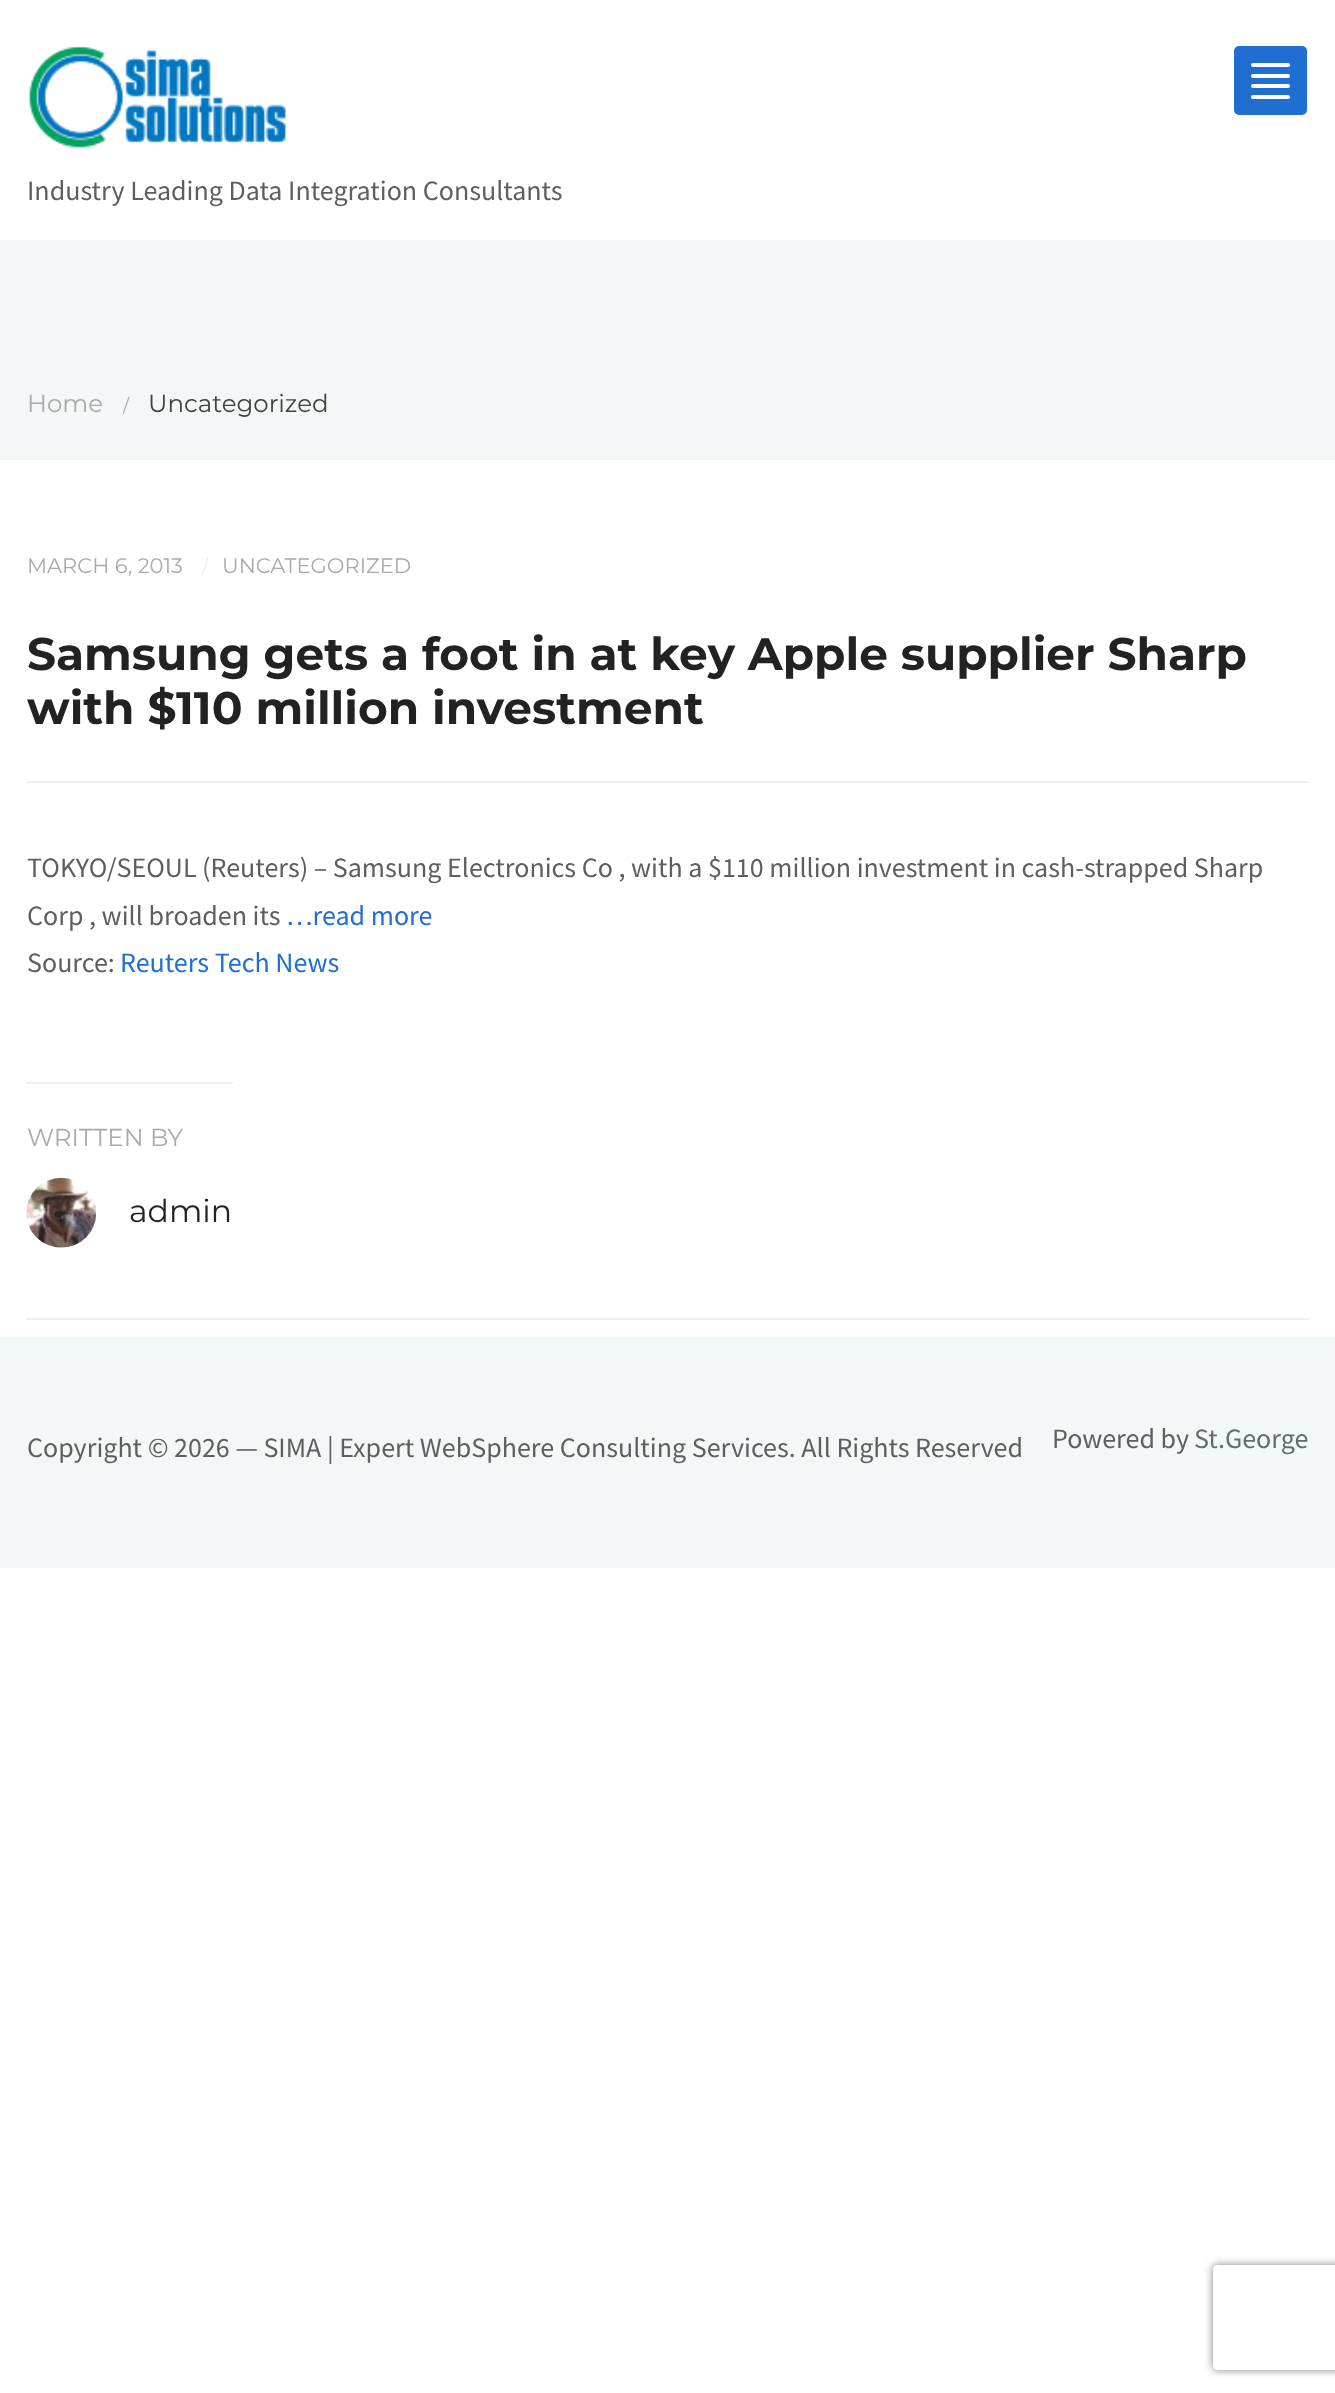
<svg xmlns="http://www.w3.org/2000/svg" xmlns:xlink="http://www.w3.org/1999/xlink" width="1335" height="2393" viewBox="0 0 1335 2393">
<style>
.cls-1{font:28px Source Sans Pro;fill:#5f5e5e}
.cls-2{font:24.5px Montserrat;fill:#aaaaaa}
.cls-3{font:18px Montserrat;fill:#aaaaaa}
.cls-4{font:24.5px Montserrat;fill:#42413e}
.cls-5{font:21px Montserrat;fill:#aaaaaa}
.cls-6{font:18px Montserrat;fill:#ececec}
.cls-7{font:bold 45.5px Montserrat;fill:#222222}
.cls-8{font:28px Source Sans Pro;fill:#206ed1}
.cls-9{font:31.5px Montserrat;fill:#222222}
.cls-10{font:28px Source Sans Pro;fill:#646b6e}
</style>
<defs>
<clipPath id="clip1"><path d="M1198 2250H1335V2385H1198ZM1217 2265H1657C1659 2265 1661 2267 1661 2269V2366C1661 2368 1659 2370 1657 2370H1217C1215 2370 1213 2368 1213 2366V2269C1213 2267 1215 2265 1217 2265Z" clip-rule="evenodd"/></clipPath>
</defs>
<rect width="100%" height="100%" fill="#ffffff"/>
<rect fill="#206ed1" stroke="#ffffff" stroke-width="2" x="1233" y="45" width="75" height="71" rx="6"/>
<rect fill="#ffffff" x="1251" y="63" width="39" height="4" rx="2"/>
<rect fill="#ffffff" x="1251" y="74" width="39" height="4" rx="2"/>
<rect fill="#ffffff" x="1251" y="84" width="39" height="4" rx="2"/>
<rect fill="#ffffff" x="1251" y="95" width="39" height="4" rx="2"/>
<image xlink:href="image0.png" x="29" y="46" width="257" height="102"/>
<rect fill="#f4f7f8" x="0" y="240" width="1335" height="220"/>
<rect fill="#efefef" x="26" y="781" width="1283" height="2"/>
<rect fill="#efefef" x="26" y="1082" width="207" height="2"/>
<image xlink:href="image1.png" x="26" y="1177" width="71" height="71"/>
<rect fill="#efefef" x="26" y="1318" width="1283" height="2"/>
<rect fill="#f4f7f8" x="0" y="1337" width="1335" height="231"/>
<g clip-path="url(#clip1)">
<rect fill="#808080" filter="blur(4.5px)" x="1213" y="2265" width="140" height="105" rx="4"/>
</g>
<text class="cls-1" x="27" y="200">Industry Leading Data Integration Consultants</text>
<text class="cls-2" x="27" y="412">Home</text>
<text class="cls-3" x="123" y="412">/</text>
<text class="cls-4" x="148" y="412">Uncategorized</text>
<text class="cls-5" x="27" y="573">MARCH 6, 2013</text>
<text class="cls-6" x="202" y="573">/</text>
<text class="cls-5" x="222" y="573">UNCATEGORIZED</text>
<text class="cls-7"><tspan x="27" y="670">Samsung gets a foot in at key Apple supplier Sharp</tspan><tspan x="27" y="724">with $110 million investment</tspan></text>
<text class="cls-1"><tspan x="27" y="877">TOKYO/SEOUL (Reuters) – Samsung Electronics Co , with a $110 million investment in cash-strapped Sharp</tspan><tspan x="27" y="925">Corp , will broaden its</tspan></text>
<text class="cls-8" x="286" y="925">…read more</text>
<text class="cls-1" x="27" y="972">Source:</text>
<text class="cls-8" x="120" y="972">Reuters Tech News</text>
<text class="cls-2" x="27" y="1146">WRITTEN BY</text>
<text class="cls-9" x="129" y="1222">admin</text>
<text class="cls-1" x="27" y="1457">Copyright © 2026 — SIMA | Expert WebSphere Consulting Services. All Rights Reserved</text>
<text class="cls-1" x="1052" y="1448">Powered by</text>
<text class="cls-10" x="1194" y="1448">St.George</text>
</svg>
